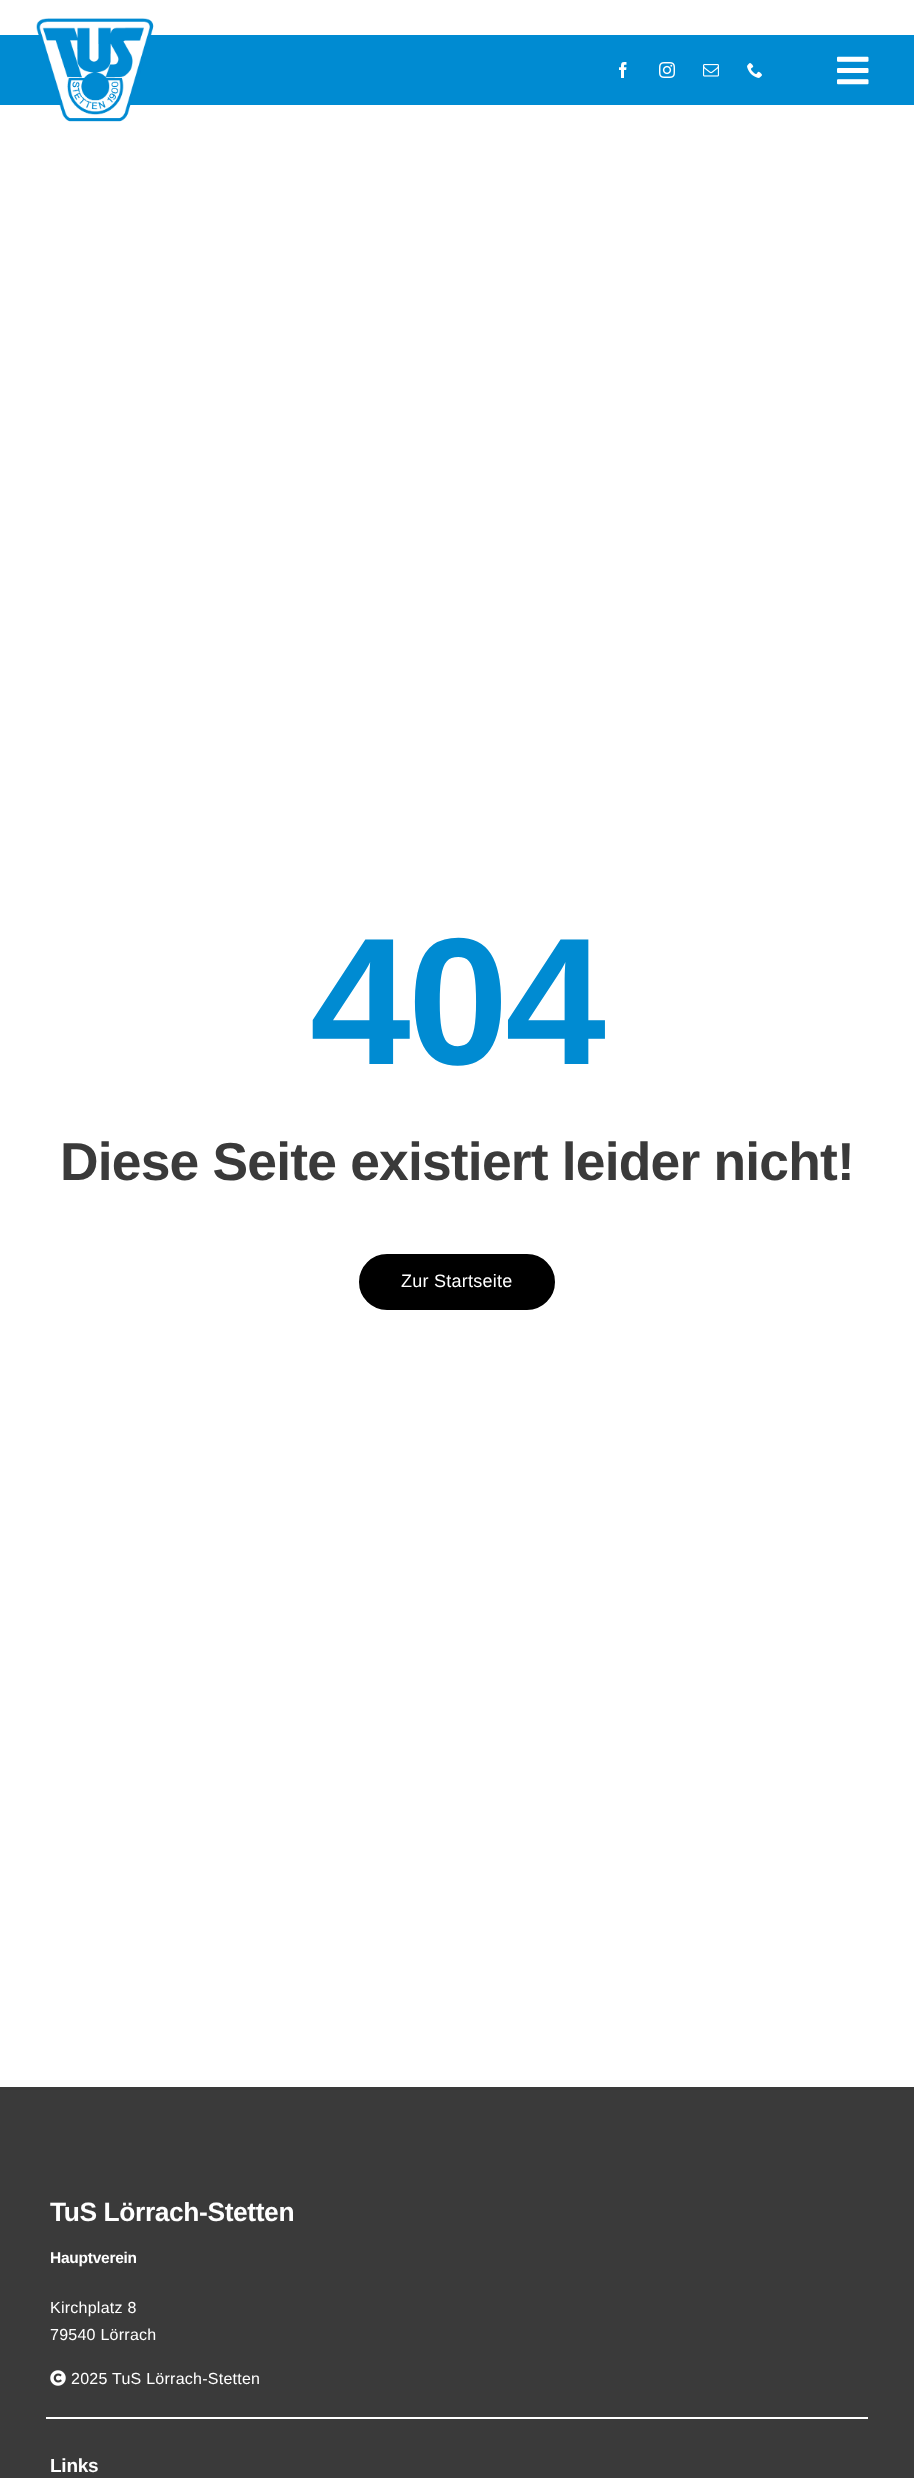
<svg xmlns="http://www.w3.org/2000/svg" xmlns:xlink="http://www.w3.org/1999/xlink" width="914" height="2478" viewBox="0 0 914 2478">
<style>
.cls-1{font:bold 181px Liberation Sans;letter-spacing:-3px;fill:#008bd2}
.cls-2{font:bold 53.4px Liberation Sans;letter-spacing:-0.8px;fill:#3a3a3a}
.cls-3{font:18px Liberation Sans;letter-spacing:0.25px;fill:#ffffff}
.cls-4{font:bold 26.4px Liberation Sans;letter-spacing:-0.4px;fill:#ffffff}
.cls-5{font:bold 15.5px Liberation Sans;letter-spacing:-0.25px;fill:#ffffff}
.cls-6{font:16px Liberation Sans;letter-spacing:0.25px;fill:#ffffff}
.cls-7{font:bold 19px Liberation Sans;letter-spacing:-0.25px;fill:#ffffff}
</style>
<rect width="100%" height="100%" fill="#ffffff"/>
<rect fill="#008bd2" x="0" y="35" width="914" height="70"/>
<image xlink:href="image0.png" x="36" y="18" width="118" height="104"/>
<image xlink:href="image1.png" x="619" y="62" width="8" height="16"/>
<image xlink:href="image2.png" x="659" y="62" width="16" height="16"/>
<image xlink:href="image3.png" x="703" y="64" width="16" height="13"/>
<image xlink:href="image4.png" x="747" y="63" width="15" height="15"/>
<image xlink:href="image5.png" x="837" y="56" width="32" height="29"/>
<rect fill="#000000" stroke="#000000" stroke-width="2" x="360" y="1255" width="194" height="54" rx="27"/>
<rect fill="#3a3a3a" x="0" y="2087" width="914" height="391"/>
<image xlink:href="image6.png" x="50" y="2370" width="16" height="16"/>
<rect fill="#ffffff" x="46" y="2417" width="822" height="2"/>
<text class="cls-1" x="310" y="1064">404</text>
<text class="cls-2" x="60" y="1180">Diese Seite existiert leider nicht!</text>
<text class="cls-3" x="401" y="1287">Zur Startseite</text>
<text class="cls-4" x="50" y="2221">TuS Lörrach-Stetten</text>
<text class="cls-5" x="50" y="2263">Hauptverein</text>
<text class="cls-6"><tspan x="50" y="2313">Kirchplatz 8</tspan><tspan x="50" y="2340">79540 Lörrach</tspan></text>
<text class="cls-6" x="71" y="2384">2025 TuS Lörrach-Stetten</text>
<text class="cls-7" x="50" y="2472">Links</text>
</svg>
